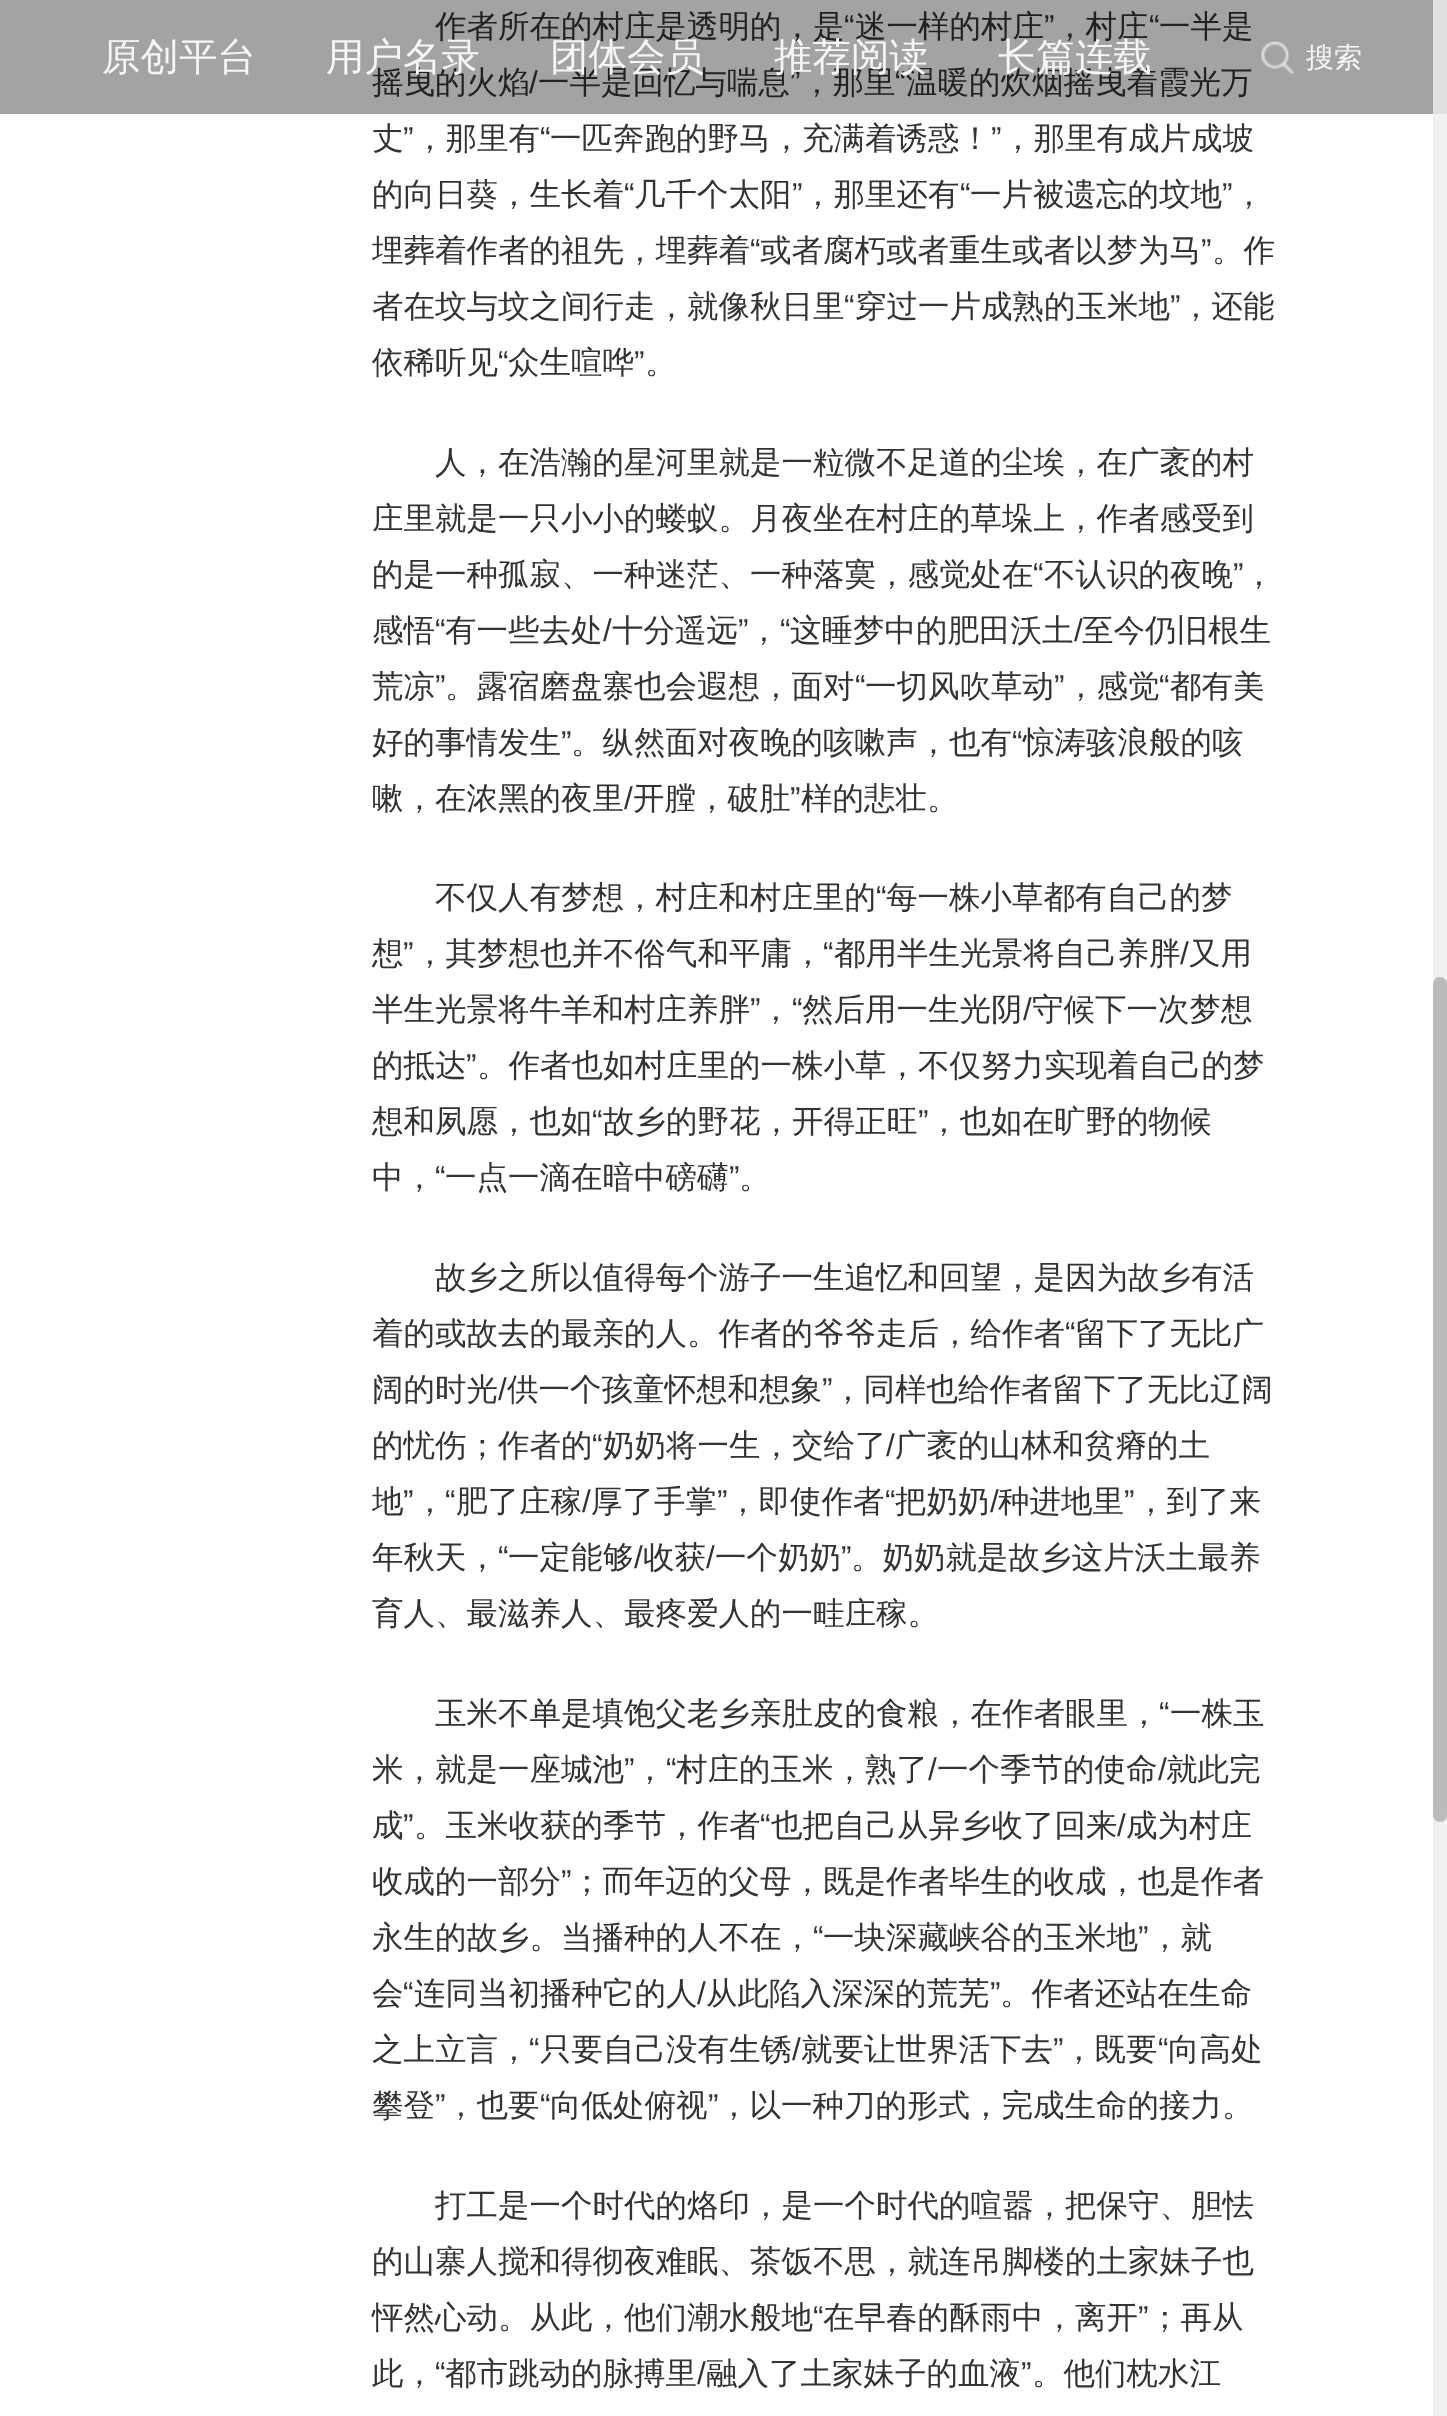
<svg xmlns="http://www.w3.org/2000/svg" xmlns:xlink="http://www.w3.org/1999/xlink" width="1447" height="2416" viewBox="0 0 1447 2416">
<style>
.cls-1{font:500 31.5px WenQuanYi Zen Hei;fill:#212121}
.cls-2{font:31.5px Liberation Sans;fill:#212121}
.cls-3{font:500 31.5px WenQuanYi Zen Hei;fill:#333333}
.cls-4{font:31.5px Liberation Sans;fill:#333333}
.cls-5{font:500 38.5px WenQuanYi Zen Hei;fill:#f6f6f6}
.cls-6{font:500 28px WenQuanYi Zen Hei;fill:#f6f6f6}
</style>
<rect width="100%" height="100%" fill="#ffffff"/>
<rect fill="#f1f1f1" x="1433" y="114" width="14" height="2302"/>
<rect fill="#a3a3a3" x="0" y="0" width="1433" height="114"/>
<rect fill="#dfdfdf" x="1433" y="0" width="14" height="114"/>
<image xlink:href="image0.png" x="1261" y="41" width="33" height="33"/>
<rect fill="#bbbbbb" x="1433" y="977" width="14" height="845" rx="7"/>
<text class="cls-1" x="435" y="37">作者所在的村庄是透明的，是</text>
<text class="cls-2" x="844" y="37">“</text>
<text class="cls-1" x="855" y="37">迷一样的村庄</text>
<text class="cls-2" x="1044" y="37">”</text>
<text class="cls-1" x="1054" y="37">，村庄</text>
<text class="cls-2" x="1149" y="37">“</text>
<text class="cls-1" x="1159" y="37">一半是</text>
<text class="cls-1" x="372" y="93">摇曳的火焰</text>
<text class="cls-2" x="529" y="93">/</text>
<text class="cls-1" x="538" y="93">一半是回忆与喘息</text>
<text class="cls-2" x="790" y="93">”</text>
<text class="cls-1" x="801" y="93">，那里</text>
<text class="cls-2" x="895" y="93">“</text>
<text class="cls-1" x="906" y="93">温暖的炊烟摇曳着霞光万</text>
<text class="cls-3" x="372" y="149">丈</text>
<text class="cls-4" x="403" y="149">”</text>
<text class="cls-3" x="414" y="149">，那里有</text>
<text class="cls-4" x="540" y="149">“</text>
<text class="cls-3" x="550" y="149">一匹奔跑的野马，充满着诱惑！</text>
<text class="cls-4" x="991" y="149">”</text>
<text class="cls-3" x="1002" y="149">，那里有成片成坡</text>
<text class="cls-3" x="372" y="205">的向日葵，生长着</text>
<text class="cls-4" x="624" y="205">“</text>
<text class="cls-3" x="634" y="205">几千个太阳</text>
<text class="cls-4" x="792" y="205">”</text>
<text class="cls-3" x="802" y="205">，那里还有</text>
<text class="cls-4" x="960" y="205">“</text>
<text class="cls-3" x="970" y="205">一片被遗忘的坟地</text>
<text class="cls-4" x="1222" y="205">”</text>
<text class="cls-3" x="1233" y="205">，</text>
<text class="cls-3" x="372" y="261">埋葬着作者的祖先，埋葬着</text>
<text class="cls-4" x="750" y="261">“</text>
<text class="cls-3" x="760" y="261">或者腐朽或者重生或者以梦为马</text>
<text class="cls-4" x="1201" y="261">”</text>
<text class="cls-3" x="1212" y="261">。作</text>
<text class="cls-3" x="372" y="317">者在坟与坟之间行走，就像秋日里</text>
<text class="cls-4" x="844" y="317">“</text>
<text class="cls-3" x="855" y="317">穿过一片成熟的玉米地</text>
<text class="cls-4" x="1170" y="317">”</text>
<text class="cls-3" x="1180" y="317">，还能</text>
<text class="cls-3" x="372" y="373">依稀听见</text>
<text class="cls-4" x="498" y="373">“</text>
<text class="cls-3" x="508" y="373">众生喧哗</text>
<text class="cls-4" x="634" y="373">”</text>
<text class="cls-3" x="645" y="373">。</text>
<text class="cls-3" x="435" y="473">人，在浩瀚的星河里就是一粒微不足道的尘埃，在广袤的村</text>
<text class="cls-3"><tspan x="372" y="529">庄里就是一只小小的蝼蚁。月夜坐在村庄的草垛上，作者感受到</tspan><tspan x="372" y="585">的是一种孤寂、一种迷茫、一种落寞，感觉处在</tspan></text>
<text class="cls-4" x="1033" y="585">“</text>
<text class="cls-3" x="1044" y="585">不认识的夜晚</text>
<text class="cls-4" x="1233" y="585">”</text>
<text class="cls-3" x="1243" y="585">，</text>
<text class="cls-3" x="372" y="641">感悟</text>
<text class="cls-4" x="435" y="641">“</text>
<text class="cls-3" x="445" y="641">有一些去处</text>
<text class="cls-4" x="603" y="641">/</text>
<text class="cls-3" x="612" y="641">十分遥远</text>
<text class="cls-4" x="738" y="641">”</text>
<text class="cls-4" x="780" y="641">“</text>
<text class="cls-3" x="790" y="641">这睡梦中的肥田沃土</text>
<text class="cls-4" x="1074" y="641">/</text>
<text class="cls-3" x="1082" y="641">至今仍旧根生</text>
<text class="cls-3" x="748" y="641">，</text>
<text class="cls-3" x="372" y="697">荒凉</text>
<text class="cls-4" x="435" y="697">”</text>
<text class="cls-3" x="445" y="697">。露宿磨盘寨也会遐想，面对</text>
<text class="cls-4" x="855" y="697">“</text>
<text class="cls-3" x="865" y="697">一切风吹草动</text>
<text class="cls-4" x="1054" y="697">”</text>
<text class="cls-3" x="1065" y="697">，感觉</text>
<text class="cls-4" x="1159" y="697">“</text>
<text class="cls-3" x="1170" y="697">都有美</text>
<text class="cls-3" x="372" y="753">好的事情发生</text>
<text class="cls-4" x="561" y="753">”</text>
<text class="cls-3" x="571" y="753">。纵然面对夜晚的咳嗽声，也有</text>
<text class="cls-4" x="1012" y="753">“</text>
<text class="cls-3" x="1023" y="753">惊涛骇浪般的咳</text>
<text class="cls-3" x="372" y="809">嗽，在浓黑的夜里</text>
<text class="cls-4" x="624" y="809">/</text>
<text class="cls-3" x="633" y="809">开膛，破肚</text>
<text class="cls-4" x="790" y="809">”</text>
<text class="cls-3" x="801" y="809">样的悲壮。</text>
<text class="cls-3" x="435" y="908">不仅人有梦想，村庄和村庄里的</text>
<text class="cls-4" x="876" y="908">“</text>
<text class="cls-3" x="886" y="908">每一株小草都有自己的梦</text>
<text class="cls-3" x="372" y="964">想</text>
<text class="cls-4" x="403" y="964">”</text>
<text class="cls-3" x="414" y="964">，其梦想也并不俗气和平庸，</text>
<text class="cls-4" x="823" y="964">“</text>
<text class="cls-3" x="834" y="964">都用半生光景将自己养胖</text>
<text class="cls-4" x="1180" y="964">/</text>
<text class="cls-3" x="1189" y="964">又用</text>
<text class="cls-3" x="372" y="1020">半生光景将牛羊和村庄养胖</text>
<text class="cls-4" x="750" y="1020">”</text>
<text class="cls-4" x="792" y="1020">“</text>
<text class="cls-3" x="802" y="1020">然后用一生光阴</text>
<text class="cls-4" x="1023" y="1020">/</text>
<text class="cls-3" x="1032" y="1020">守候下一次梦想</text>
<text class="cls-3" x="760" y="1020">，</text>
<text class="cls-3" x="372" y="1076">的抵达</text>
<text class="cls-4" x="466" y="1076">”</text>
<text class="cls-3" x="477" y="1076">。作者也如村庄里的一株小草，不仅努力实现着自己的梦</text>
<text class="cls-3" x="372" y="1132">想和夙愿，也如</text>
<text class="cls-4" x="592" y="1132">“</text>
<text class="cls-3" x="603" y="1132">故乡的野花，开得正旺</text>
<text class="cls-4" x="918" y="1132">”</text>
<text class="cls-3" x="928" y="1132">，也如在旷野的物候</text>
<text class="cls-3" x="372" y="1188">中，</text>
<text class="cls-4" x="435" y="1188">“</text>
<text class="cls-3" x="445" y="1188">一点一滴在暗中磅礴</text>
<text class="cls-4" x="729" y="1188">”</text>
<text class="cls-3" x="739" y="1188">。</text>
<text class="cls-3" x="435" y="1288">故乡之所以值得每个游子一生追忆和回望，是因为故乡有活</text>
<text class="cls-3" x="372" y="1344">着的或故去的最亲的人。作者的爷爷走后，给作者</text>
<text class="cls-4" x="1065" y="1344">“</text>
<text class="cls-3" x="1075" y="1344">留下了无比广</text>
<text class="cls-3" x="372" y="1400">阔的时光</text>
<text class="cls-4" x="498" y="1400">/</text>
<text class="cls-3" x="507" y="1400">供一个孩童怀想和想象</text>
<text class="cls-4" x="822" y="1400">”</text>
<text class="cls-3" x="832" y="1400">，同样也给作者留下了无比辽阔</text>
<text class="cls-3" x="372" y="1456">的忧伤；作者的</text>
<text class="cls-4" x="592" y="1456">“</text>
<text class="cls-3" x="603" y="1456">奶奶将一生，交给了</text>
<text class="cls-4" x="886" y="1456">/</text>
<text class="cls-3" x="895" y="1456">广袤的山林和贫瘠的土</text>
<text class="cls-3" x="372" y="1512">地</text>
<text class="cls-4" x="403" y="1512">”</text>
<text class="cls-4" x="445" y="1512">“</text>
<text class="cls-3" x="456" y="1512">肥了庄稼</text>
<text class="cls-4" x="582" y="1512">/</text>
<text class="cls-3" x="591" y="1512">厚了手掌</text>
<text class="cls-4" x="717" y="1512">”</text>
<text class="cls-3" x="727" y="1512">，即使作者</text>
<text class="cls-4" x="885" y="1512">“</text>
<text class="cls-3" x="895" y="1512">把奶奶</text>
<text class="cls-4" x="990" y="1512">/</text>
<text class="cls-3" x="998" y="1512">种进地里</text>
<text class="cls-4" x="1124" y="1512">”</text>
<text class="cls-3" x="1135" y="1512">，到了来</text>
<text class="cls-3" x="414" y="1512">，</text>
<text class="cls-3" x="372" y="1568">年秋天，</text>
<text class="cls-4" x="498" y="1568">“</text>
<text class="cls-3" x="508" y="1568">一定能够</text>
<text class="cls-4" x="634" y="1568">/</text>
<text class="cls-3" x="643" y="1568">收获</text>
<text class="cls-4" x="706" y="1568">/</text>
<text class="cls-3" x="715" y="1568">一个奶奶</text>
<text class="cls-4" x="841" y="1568">”</text>
<text class="cls-3" x="851" y="1568">。奶奶就是故乡这片沃土最养</text>
<text class="cls-3" x="372" y="1624">育人、最滋养人、最疼爱人的一畦庄稼。</text>
<text class="cls-3" x="435" y="1724">玉米不单是填饱父老乡亲肚皮的食粮，在作者眼里，</text>
<text class="cls-4" x="1159" y="1724">“</text>
<text class="cls-3" x="1170" y="1724">一株玉</text>
<text class="cls-3" x="372" y="1780">米，就是一座城池</text>
<text class="cls-4" x="624" y="1780">”</text>
<text class="cls-4" x="666" y="1780">“</text>
<text class="cls-3" x="676" y="1780">村庄的玉米，熟了</text>
<text class="cls-4" x="928" y="1780">/</text>
<text class="cls-3" x="937" y="1780">一个季节的使命</text>
<text class="cls-4" x="1158" y="1780">/</text>
<text class="cls-3" x="1166" y="1780">就此完</text>
<text class="cls-3" x="634" y="1780">，</text>
<text class="cls-3" x="372" y="1836">成</text>
<text class="cls-4" x="403" y="1836">”</text>
<text class="cls-3" x="414" y="1836">。玉米收获的季节，作者</text>
<text class="cls-4" x="760" y="1836">“</text>
<text class="cls-3" x="771" y="1836">也把自己从异乡收了回来</text>
<text class="cls-4" x="1117" y="1836">/</text>
<text class="cls-3" x="1126" y="1836">成为村庄</text>
<text class="cls-3" x="372" y="1892">收成的一部分</text>
<text class="cls-4" x="561" y="1892">”</text>
<text class="cls-3" x="571" y="1892">；而年迈的父母，既是作者毕生的收成，也是作者</text>
<text class="cls-3" x="372" y="1948">永生的故乡。当播种的人不在，</text>
<text class="cls-4" x="813" y="1948">“</text>
<text class="cls-3" x="823" y="1948">一块深藏峡谷的玉米地</text>
<text class="cls-4" x="1138" y="1948">”</text>
<text class="cls-3" x="1149" y="1948">，就</text>
<text class="cls-3" x="372" y="2004">会</text>
<text class="cls-4" x="403" y="2004">“</text>
<text class="cls-3" x="414" y="2004">连同当初播种它的人</text>
<text class="cls-4" x="697" y="2004">/</text>
<text class="cls-3" x="706" y="2004">从此陷入深深的荒芜</text>
<text class="cls-4" x="990" y="2004">”</text>
<text class="cls-3" x="1000" y="2004">。作者还站在生命</text>
<text class="cls-3" x="372" y="2060">之上立言，</text>
<text class="cls-4" x="529" y="2060">“</text>
<text class="cls-3" x="540" y="2060">只要自己没有生锈</text>
<text class="cls-4" x="792" y="2060">/</text>
<text class="cls-3" x="801" y="2060">就要让世界活下去</text>
<text class="cls-4" x="1053" y="2060">”</text>
<text class="cls-3" x="1063" y="2060">，既要</text>
<text class="cls-4" x="1158" y="2060">“</text>
<text class="cls-3" x="1168" y="2060">向高处</text>
<text class="cls-3" x="372" y="2116">攀登</text>
<text class="cls-4" x="435" y="2116">”</text>
<text class="cls-3" x="445" y="2116">，也要</text>
<text class="cls-4" x="540" y="2116">“</text>
<text class="cls-3" x="550" y="2116">向低处俯视</text>
<text class="cls-4" x="708" y="2116">”</text>
<text class="cls-3" x="718" y="2116">，以一种刀的形式，完成生命的接力。</text>
<text class="cls-3" x="435" y="2216">打工是一个时代的烙印，是一个时代的喧嚣，把保守、胆怯</text>
<text class="cls-3"><tspan x="372" y="2272">的山寨人搅和得彻夜难眠、茶饭不思，就连吊脚楼的土家妹子也</tspan><tspan x="372" y="2328">怦然心动。从此，他们潮水般地</tspan></text>
<text class="cls-4" x="813" y="2328">“</text>
<text class="cls-3" x="823" y="2328">在早春的酥雨中，离开</text>
<text class="cls-4" x="1138" y="2328">”</text>
<text class="cls-3" x="1149" y="2328">；再从</text>
<text class="cls-3" x="372" y="2384">此，</text>
<text class="cls-4" x="435" y="2384">“</text>
<text class="cls-3" x="445" y="2384">都市跳动的脉搏里</text>
<text class="cls-4" x="697" y="2384">/</text>
<text class="cls-3" x="706" y="2384">融入了土家妹子的血液</text>
<text class="cls-4" x="1021" y="2384">”</text>
<text class="cls-3" x="1032" y="2384">。他们枕水江</text>
<text class="cls-5" x="102" y="70">原创平台</text>
<text class="cls-5" x="326" y="70">用户名录</text>
<text class="cls-5" x="550" y="70">团体会员</text>
<text class="cls-5" x="774" y="70">推荐阅读</text>
<text class="cls-5" x="998" y="70">长篇连载</text>
<text class="cls-6" x="1306" y="67">搜索</text>
</svg>
